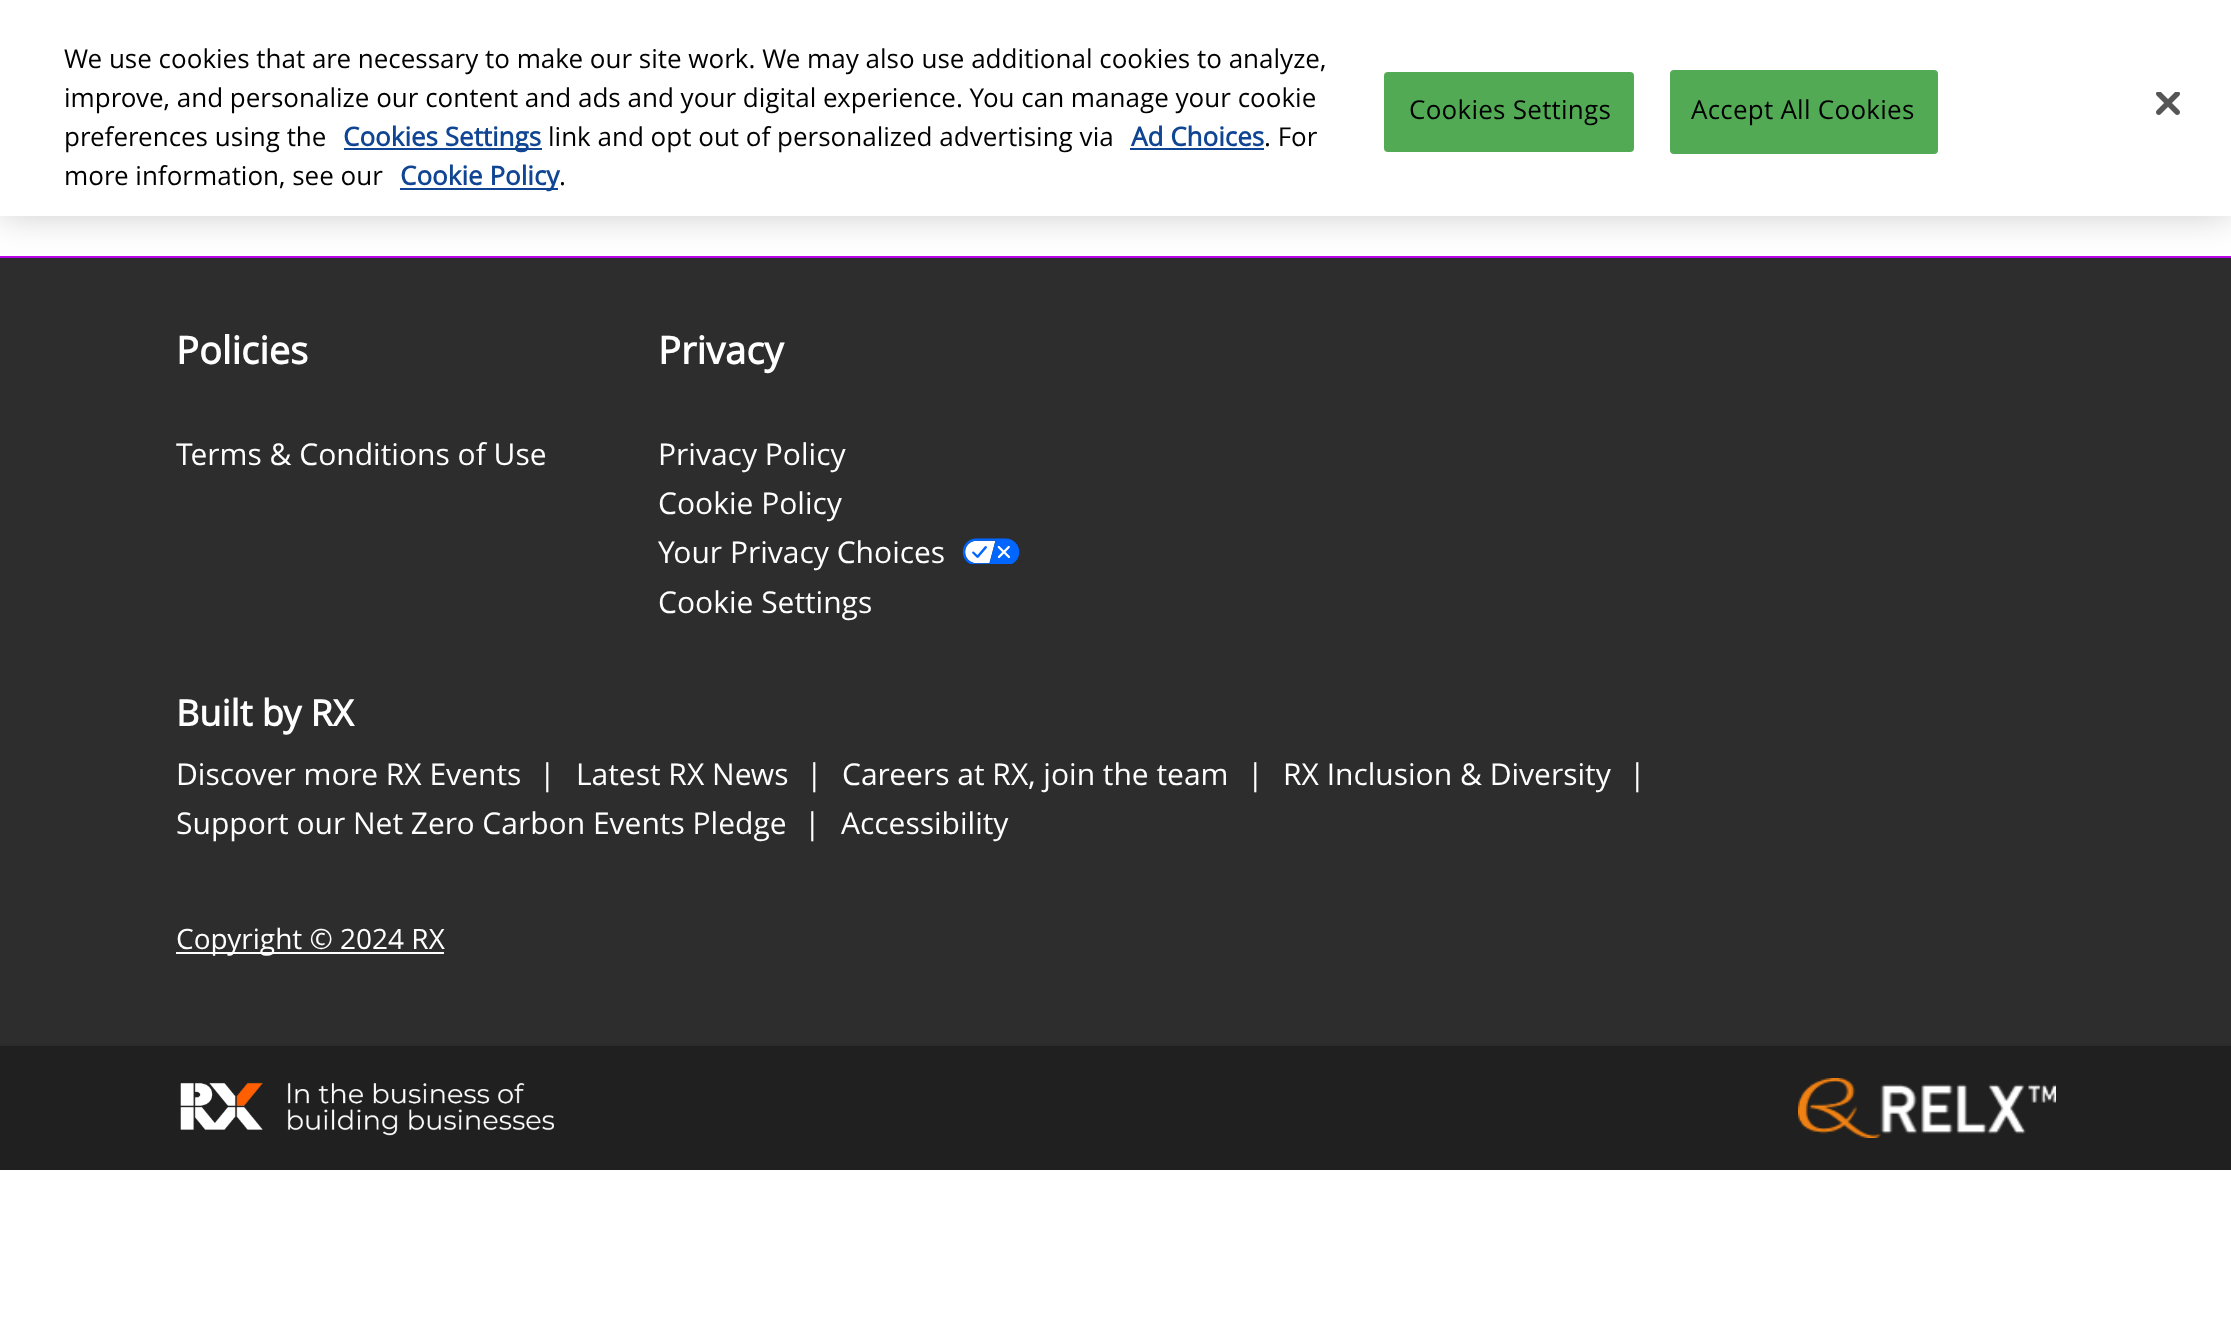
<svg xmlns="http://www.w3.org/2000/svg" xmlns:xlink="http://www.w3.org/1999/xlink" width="2231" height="1318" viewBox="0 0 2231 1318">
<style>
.cls-1{font:26px Open Sans;fill:#000000}
.cls-2{font:bold 26px Open Sans;fill:#104593}
.cls-3{font:26px Open Sans;letter-spacing:0.25px;fill:#000000}
.cls-4{font:bold 38px Open Sans;fill:#ffffff}
.cls-5{font:30px Open Sans;fill:#ffffff}
.cls-6{font:bold 36px Open Sans;fill:#ffffff}
.cls-7{font:28px Open Sans;fill:#ffffff}
</style>
<rect width="100%" height="100%" fill="#ffffff"/>
<rect fill="#2d2d2d" x="0" y="258" width="2231" height="786"/>
<rect fill="#b902e8" x="0" y="256" width="2231" height="2"/>
<rect fill="#000000" fill-opacity="0.2" filter="blur(18px)" x="0" y="0" width="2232" height="216"/>
<rect fill="#ffffff" x="0" y="0" width="2231" height="216"/>
<rect fill="#104593" x="344" y="148" width="198" height="2"/>
<rect fill="#104593" x="1130" y="148" width="134" height="2"/>
<rect fill="#104593" x="400" y="188" width="158" height="2"/>
<rect fill="#52aa55" x="1384" y="72" width="250" height="80" rx="4"/>
<rect fill="#52aa55" stroke="#52aa55" stroke-width="2" x="1671" y="71" width="266" height="82" rx="3"/>
<image xlink:href="image0.png" x="2156" y="92" width="24" height="23"/>
<image xlink:href="image1.png" x="962" y="538" width="58" height="26"/>
<rect fill="#ffffff" x="176" y="952" width="268" height="2"/>
<rect fill="#202020" x="0" y="1046" width="2231" height="124"/>
<rect fill="#2b2b2b" x="0" y="1044" width="2231" height="2"/>
<image xlink:href="image2.png" x="180" y="1082" width="374" height="54"/>
<image xlink:href="image3.png" x="1798" y="1078" width="258" height="60"/>
<text class="cls-1"><tspan x="64" y="68">We use cookies that are necessary to make our site work. We may also use additional cookies to analyze,</tspan><tspan x="64" y="107">improve, and personalize our content and ads and your digital experience. You can manage your cookie</tspan><tspan x="64" y="146">preferences using the</tspan></text>
<text class="cls-2" x="343" y="146">Cookies Settings</text>
<text class="cls-1" x="548" y="146">link and opt out of personalized advertising via</text>
<text class="cls-2" x="1131" y="146">Ad Choices</text>
<text class="cls-1" x="1264" y="146">. For</text>
<text class="cls-1" x="64" y="185">more information, see our</text>
<text class="cls-2" x="400" y="185">Cookie Policy</text>
<text class="cls-1" x="559" y="185">.</text>
<text class="cls-3" x="1409" y="119">Cookies Settings</text>
<text class="cls-3" x="1691" y="119">Accept All Cookies</text>
<text class="cls-4" x="176" y="364">Policies</text>
<text class="cls-5" x="176" y="465">Terms &amp; Conditions of Use</text>
<text class="cls-4" x="658" y="364">Privacy</text>
<text class="cls-5"><tspan x="658" y="465">Privacy Policy</tspan><tspan x="658" y="514">Cookie Policy</tspan><tspan x="658" y="563">Your Privacy Choices</tspan><tspan x="658" y="613">Cookie Settings</tspan></text>
<text class="cls-6" x="176" y="726">Built by RX</text>
<text class="cls-5" x="176" y="785">Discover more RX Events</text>
<text class="cls-5" x="539" y="785">|</text>
<text class="cls-5" x="576" y="785">Latest RX News</text>
<text class="cls-5" x="806" y="785">|</text>
<text class="cls-5" x="842" y="785">Careers at RX, join the team</text>
<text class="cls-5" x="1247" y="785">|</text>
<text class="cls-5" x="1283" y="785">RX Inclusion &amp; Diversity</text>
<text class="cls-5" x="1629" y="785">|</text>
<text class="cls-5" x="176" y="834">Support our Net Zero Carbon Events Pledge</text>
<text class="cls-5" x="804" y="834">|</text>
<text class="cls-5" x="841" y="834">Accessibility</text>
<text class="cls-7" x="176" y="949">Copyright © 2024 RX</text>
</svg>
